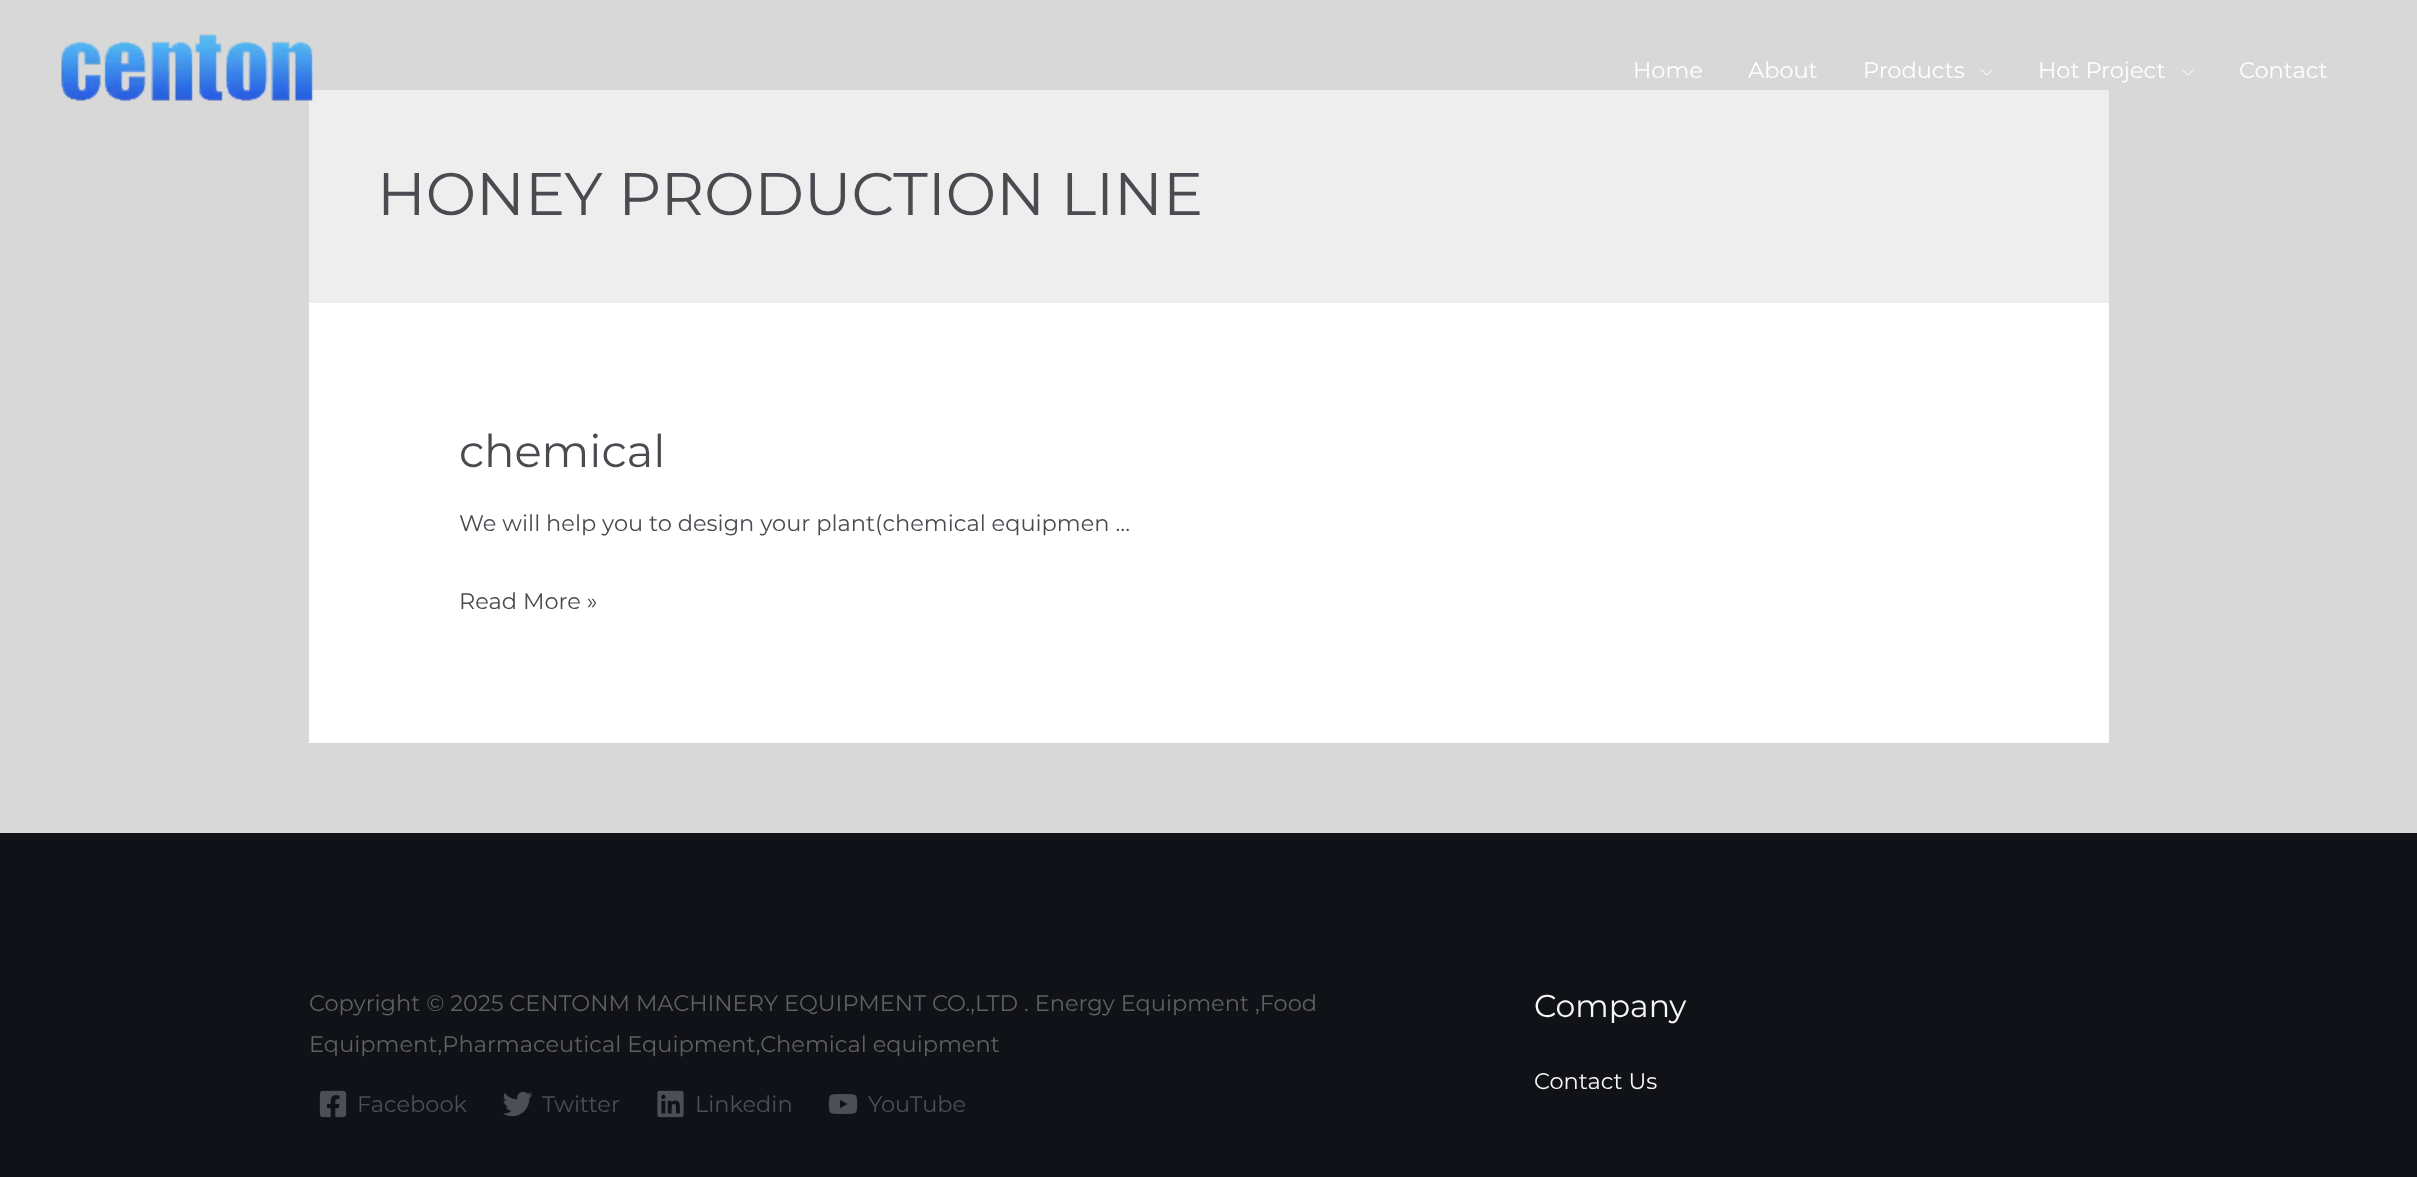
<svg xmlns="http://www.w3.org/2000/svg" xmlns:xlink="http://www.w3.org/1999/xlink" width="2417" height="1177" viewBox="0 0 2417 1177">
<style>
.cls-1{font:22.5px Montserrat;fill:#ffffff}
.cls-2{font:60px Montserrat;fill:#494b51}
.cls-3{font:45px Montserrat;fill:#494b51}
.cls-4{font:22.5px Montserrat;fill:#494b51}
.cls-5{font:22.5px Montserrat;fill:#5f6064}
.cls-6{font:22.5px Montserrat;fill:#4b4f58}
.cls-7{font:31.5px Montserrat;fill:#f6f7f8}
.cls-8{font:22.5px Montserrat;fill:#f6f7f8}
</style>
<rect width="100%" height="100%" fill="#d8d8d8"/>
<rect fill="#eeeeee" x="309" y="90" width="1800" height="213"/>
<image xlink:href="image0.png" x="61" y="34" width="253" height="67"/>
<image xlink:href="image1.png" x="1980" y="69" width="13" height="7"/>
<image xlink:href="image1.png" x="2181" y="69" width="13" height="7"/>
<rect fill="#ffffff" x="309" y="303" width="1800" height="440"/>
<rect fill="#101218" x="0" y="833" width="2417" height="344"/>
<image xlink:href="image2.png" x="319" y="1090" width="28" height="28"/>
<image xlink:href="image3.png" x="503" y="1091" width="30" height="26"/>
<image xlink:href="image4.png" x="657" y="1090" width="27" height="28"/>
<image xlink:href="image5.png" x="828" y="1094" width="30" height="20"/>
<text class="cls-1" x="1633" y="78">Home</text>
<text class="cls-1" x="1748" y="78">About</text>
<text class="cls-1" x="1863" y="78">Products</text>
<text class="cls-1" x="2038" y="78">Hot Project</text>
<text class="cls-1" x="2239" y="78">Contact</text>
<text class="cls-2" x="377" y="215">HONEY PRODUCTION LINE</text>
<text class="cls-3" x="459" y="467">chemical</text>
<text class="cls-4" x="459" y="531">We will help you to design your plant(chemical equipmen …</text>
<text class="cls-4" x="459" y="609">Read More »</text>
<text class="cls-5"><tspan x="309" y="1011">Copyright © 2025 CENTONM MACHINERY EQUIPMENT CO.,LTD . Energy Equipment ,Food</tspan><tspan x="309" y="1052">Equipment,Pharmaceutical Equipment,Chemical equipment</tspan></text>
<text class="cls-6" x="357" y="1112">Facebook</text>
<text class="cls-6" x="542" y="1112">Twitter</text>
<text class="cls-6" x="695" y="1112">Linkedin</text>
<text class="cls-6" x="868" y="1112">YouTube</text>
<text class="cls-7" x="1534" y="1017">Company</text>
<text class="cls-8" x="1534" y="1089">Contact Us</text>
</svg>
